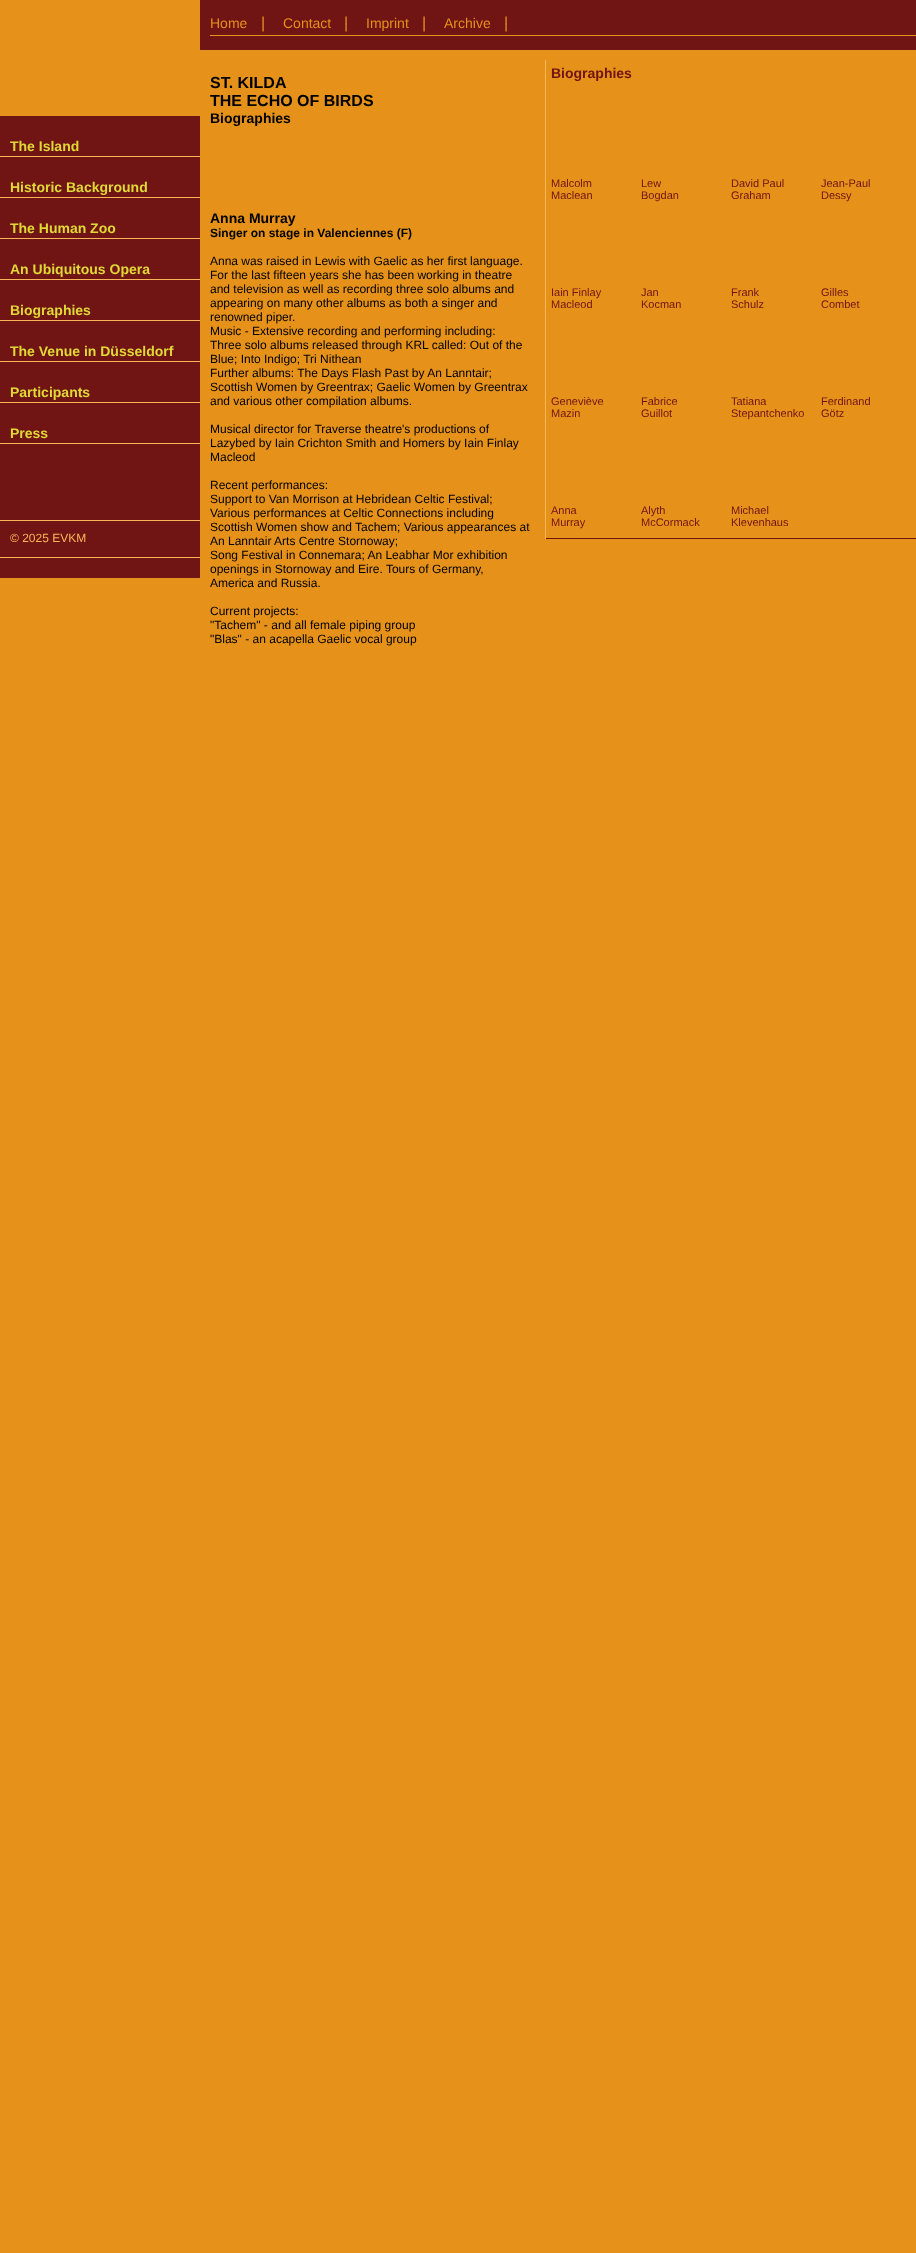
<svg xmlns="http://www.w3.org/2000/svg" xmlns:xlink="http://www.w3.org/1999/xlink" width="916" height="2253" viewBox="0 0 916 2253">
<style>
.cls-1{font:bold 14px Liberation Sans;fill:#dfd937}
.cls-2{font:12px Liberation Sans;fill:#f8b658}
.cls-3{font:14px Liberation Sans;fill:#e5911a}
.cls-4{font:16px Liberation Sans;fill:#e5911a}
.cls-5{font:bold 16px Liberation Sans;fill:#000000}
.cls-6{font:bold 14px Liberation Sans;fill:#000000}
.cls-7{font:bold 12px Liberation Sans;fill:#000000}
.cls-8{font:12px Liberation Sans;fill:#000000}
.cls-9{font:bold 14px Liberation Sans;fill:#711414}
.cls-10{font:11px Liberation Sans;fill:#711414}
</style>
<rect width="100%" height="100%" fill="#e5911a"/>
<rect fill="#711414" x="0" y="116" width="200" height="462"/>
<rect fill="#f8b658" x="0" y="156" width="200" height="1"/>
<rect fill="#f8b658" x="0" y="197" width="200" height="1"/>
<rect fill="#f8b658" x="0" y="238" width="200" height="1"/>
<rect fill="#f8b658" x="0" y="279" width="200" height="1"/>
<rect fill="#f8b658" x="0" y="320" width="200" height="1"/>
<rect fill="#f8b658" x="0" y="361" width="200" height="1"/>
<rect fill="#f8b658" x="0" y="402" width="200" height="1"/>
<rect fill="#f8b658" x="0" y="443" width="200" height="1"/>
<rect fill="#f8b658" x="0" y="520" width="200" height="1"/>
<rect fill="#f8b658" x="0" y="557" width="200" height="1"/>
<rect fill="#711414" x="200" y="0" width="716" height="50"/>
<rect fill="#e5911a" x="210" y="35" width="706" height="1"/>
<rect fill="#711414" x="545" y="538" width="371" height="1"/>
<rect fill="#f8b658" x="545" y="60" width="1" height="479"/>
<text class="cls-1" x="10" y="151">The Island</text>
<text class="cls-1" x="10" y="192">Historic Background</text>
<text class="cls-1" x="10" y="233">The Human Zoo</text>
<text class="cls-1" x="10" y="274">An Ubiquitous Opera</text>
<text class="cls-1" x="10" y="315">Biographies</text>
<text class="cls-1" x="10" y="356">The Venue in Düsseldorf</text>
<text class="cls-1" x="10" y="397">Participants</text>
<text class="cls-1" x="10" y="438">Press</text>
<text class="cls-2" x="10" y="542">© 2025 EVKM</text>
<text class="cls-3" x="210" y="28">Home</text>
<text class="cls-4" x="261" y="28">|</text>
<text class="cls-3" x="283" y="28">Contact</text>
<text class="cls-4" x="344" y="28">|</text>
<text class="cls-3" x="366" y="28">Imprint</text>
<text class="cls-4" x="422" y="28">|</text>
<text class="cls-3" x="444" y="28">Archive</text>
<text class="cls-4" x="504" y="28">|</text>
<text class="cls-5"><tspan x="210" y="88">ST. KILDA</tspan><tspan x="210" y="106">THE ECHO OF BIRDS</tspan></text>
<text class="cls-6" x="210" y="123">Biographies</text>
<text class="cls-6" x="210" y="223">Anna Murray</text>
<text class="cls-7" x="210" y="237">Singer on stage in Valenciennes (F)</text>
<text class="cls-8"><tspan x="210" y="265">Anna was raised in Lewis with Gaelic as her first language.</tspan><tspan x="210" y="279">For the last fifteen years she has been working in theatre</tspan><tspan x="210" y="293">and television as well as recording three solo albums and</tspan><tspan x="210" y="307">appearing on many other albums as both a singer and</tspan><tspan x="210" y="321">renowned piper.</tspan><tspan x="210" y="335">Music - Extensive recording and performing including:</tspan><tspan x="210" y="349">Three solo albums released through KRL called: Out of the</tspan><tspan x="210" y="363">Blue; Into Indigo; Tri Nithean</tspan><tspan x="210" y="377">Further albums: The Days Flash Past by An Lanntair;</tspan><tspan x="210" y="391">Scottish Women by Greentrax; Gaelic Women by Greentrax</tspan><tspan x="210" y="405">and various other compilation albums.</tspan></text>
<text class="cls-8"><tspan x="210" y="433">Musical director for Traverse theatre's productions of</tspan><tspan x="210" y="447">Lazybed by Iain Crichton Smith and Homers by Iain Finlay</tspan><tspan x="210" y="461">Macleod</tspan></text>
<text class="cls-8"><tspan x="210" y="489">Recent performances:</tspan><tspan x="210" y="503">Support to Van Morrison at Hebridean Celtic Festival;</tspan><tspan x="210" y="517">Various performances at Celtic Connections including</tspan><tspan x="210" y="531">Scottish Women show and Tachem; Various appearances at</tspan><tspan x="210" y="545">An Lanntair Arts Centre Stornoway;</tspan><tspan x="210" y="559">Song Festival in Connemara; An Leabhar Mor exhibition</tspan><tspan x="210" y="573">openings in Stornoway and Eire. Tours of Germany,</tspan><tspan x="210" y="587">America and Russia.</tspan></text>
<text class="cls-8"><tspan x="210" y="615">Current projects:</tspan><tspan x="210" y="629">"Tachem" - and all female piping group</tspan><tspan x="210" y="643">"Blas" - an acapella Gaelic vocal group</tspan></text>
<text class="cls-9" x="551" y="78">Biographies</text>
<text class="cls-10"><tspan x="551" y="187">Malcolm</tspan><tspan x="551" y="199">Maclean</tspan></text>
<text class="cls-10"><tspan x="641" y="187">Lew</tspan><tspan x="641" y="199">Bogdan</tspan></text>
<text class="cls-10"><tspan x="731" y="187">David Paul</tspan><tspan x="731" y="199">Graham</tspan></text>
<text class="cls-10"><tspan x="821" y="187">Jean-Paul</tspan><tspan x="821" y="199">Dessy</tspan></text>
<text class="cls-10"><tspan x="551" y="296">Iain Finlay</tspan><tspan x="551" y="308">Macleod</tspan></text>
<text class="cls-10"><tspan x="641" y="296">Jan</tspan><tspan x="641" y="308">Kocman</tspan></text>
<text class="cls-10"><tspan x="731" y="296">Frank</tspan><tspan x="731" y="308">Schulz</tspan></text>
<text class="cls-10"><tspan x="821" y="296">Gilles</tspan><tspan x="821" y="308">Combet</tspan></text>
<text class="cls-10"><tspan x="551" y="405">Geneviève</tspan><tspan x="551" y="417">Mazin</tspan></text>
<text class="cls-10"><tspan x="641" y="405">Fabrice</tspan><tspan x="641" y="417">Guillot</tspan></text>
<text class="cls-10"><tspan x="731" y="405">Tatiana</tspan><tspan x="731" y="417">Stepantchenko</tspan></text>
<text class="cls-10"><tspan x="821" y="405">Ferdinand</tspan><tspan x="821" y="417">Götz</tspan></text>
<text class="cls-10"><tspan x="551" y="514">Anna</tspan><tspan x="551" y="526">Murray</tspan></text>
<text class="cls-10"><tspan x="641" y="514">Alyth</tspan><tspan x="641" y="526">McCormack</tspan></text>
<text class="cls-10"><tspan x="731" y="514">Michael</tspan><tspan x="731" y="526">Klevenhaus</tspan></text>
</svg>
